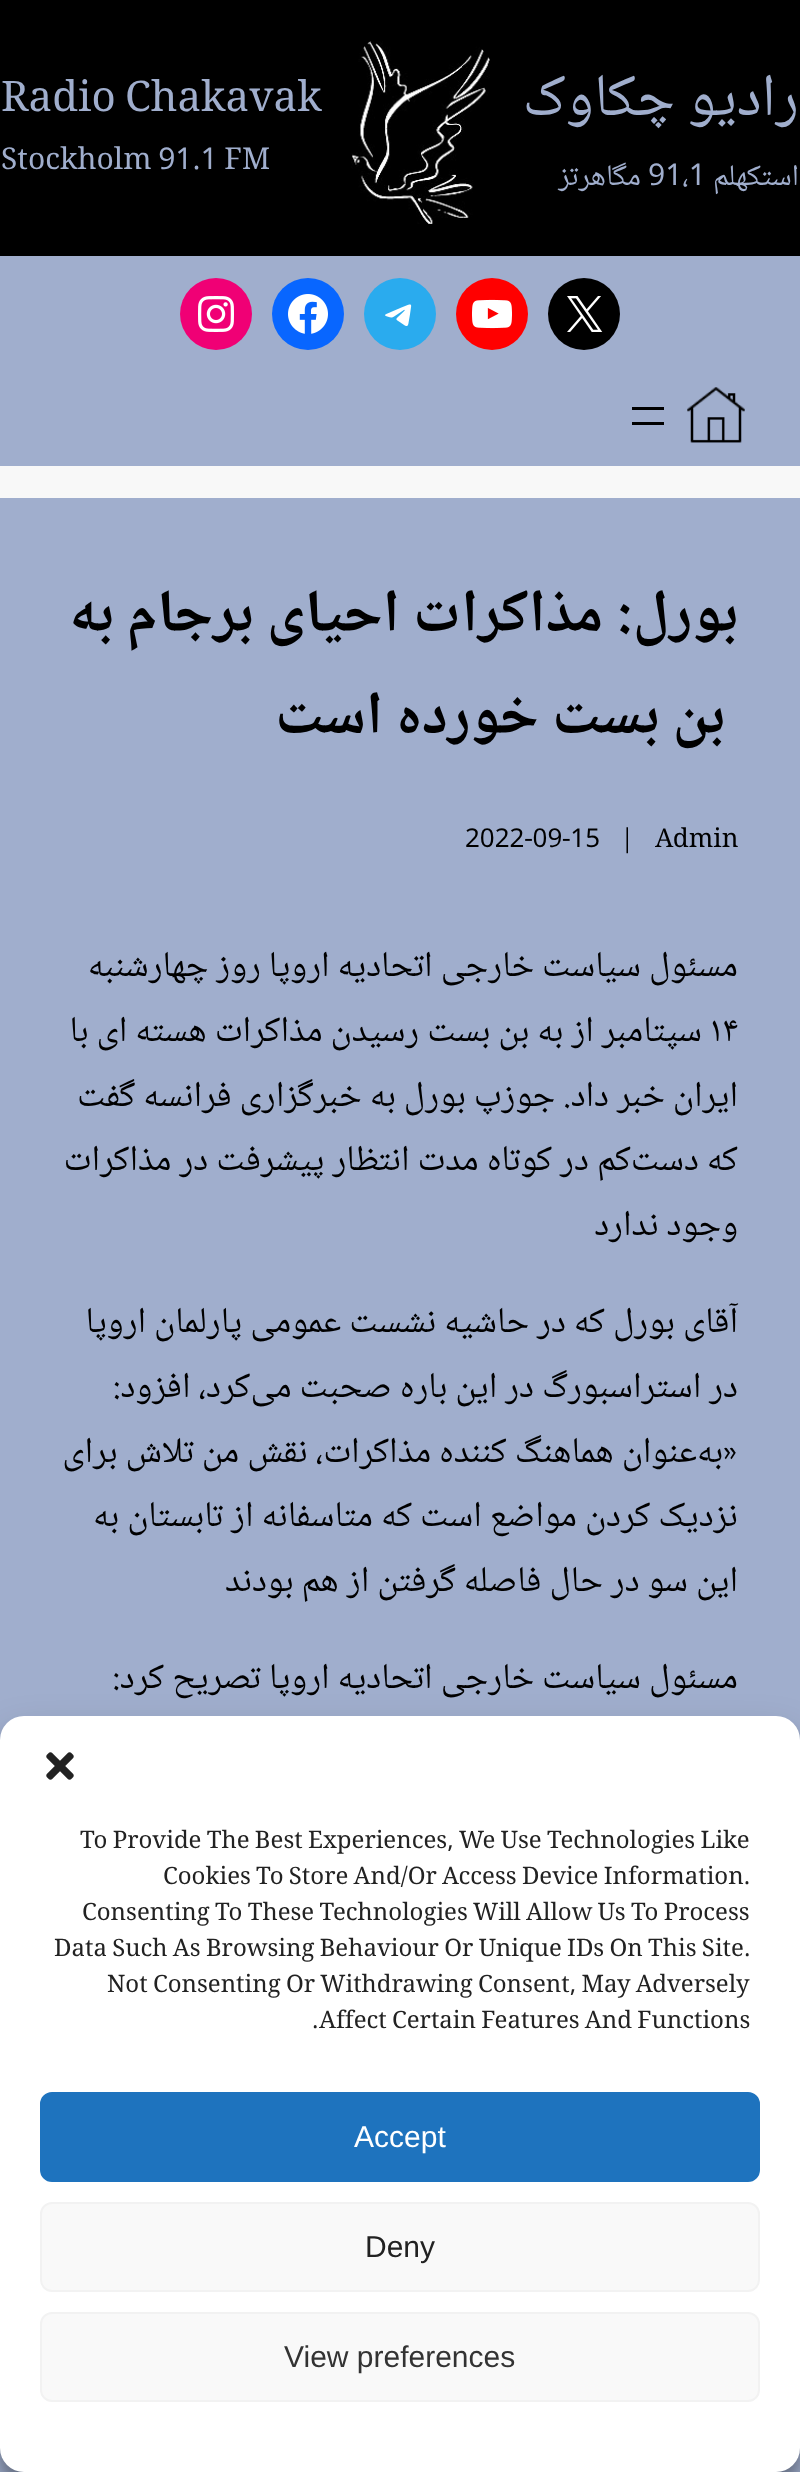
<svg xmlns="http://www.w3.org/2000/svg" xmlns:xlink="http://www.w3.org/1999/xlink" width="800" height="2472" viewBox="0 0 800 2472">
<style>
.cls-1{font:60px Noto Naskh Arabic;direction:rtl;fill:#a0aecd}
.cls-2{font:30px Noto Naskh Arabic;direction:rtl;fill:#a0aecd}
.cls-3{font:30px Noto Naskh Arabic;fill:#a0aecd}
.cls-4{font:42px Noto Naskh Arabic;fill:#a0aecd}
.cls-5{font:bold 60px Noto Naskh Arabic;direction:rtl;fill:#000000}
.cls-6{font:26px Noto Naskh Arabic;fill:#000000}
.cls-7{font:36px Noto Naskh Arabic;direction:rtl;fill:#000000}
.cls-8{font:36px Noto Naskh Arabic;fill:#000000}
.cls-9{font:24px Noto Naskh Arabic;fill:#222222}
.cls-10{font:30px Liberation Sans;fill:#ffffff}
.cls-11{font:30px Liberation Sans;fill:#222222}
.cls-12{font:30px Liberation Sans;fill:#333333}
</style>
<rect width="100%" height="100%" fill="#f8f8f8"/>
<rect fill="#000000" x="0" y="0" width="800" height="256"/>
<image xlink:href="image0.png" x="351" y="41" width="139" height="183"/>
<rect fill="#a0aecd" x="0" y="256" width="800" height="210"/>
<circle fill="#000000" cx="584" cy="314" r="36"/>
<image xlink:href="image1.png" x="567" y="296" width="36" height="36"/>
<circle fill="#ff0000" cx="492" cy="314" r="36"/>
<image xlink:href="image2.png" x="472" y="299" width="40" height="30"/>
<circle fill="#2aabee" cx="400" cy="314" r="36"/>
<image xlink:href="image3.png" x="385" y="304" width="27" height="22"/>
<circle fill="#0866ff" cx="308" cy="314" r="36"/>
<image xlink:href="image4.png" x="288" y="294" width="40" height="40"/>
<circle fill="#f00075" cx="216" cy="314" r="36"/>
<image xlink:href="image5.png" x="198" y="296" width="36" height="36"/>
<image xlink:href="image6.png" x="687" y="387" width="58" height="56"/>
<rect fill="#000000" x="632" y="407" width="32" height="3"/>
<rect fill="#000000" x="632" y="422" width="32" height="3"/>
<rect fill="#a0aecd" x="0" y="498" width="800" height="1242"/>
<rect fill="#a0aecd" x="0" y="2448" width="800" height="24"/>
<rect fill="#000000" fill-opacity="0.23" filter="blur(6px)" x="0" y="1728" width="800" height="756" rx="24"/>
<rect fill="#000000" fill-opacity="0.19" filter="blur(20px)" x="0" y="1736" width="800" height="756" rx="24"/>
<rect fill="#ffffff" x="0" y="1716" width="800" height="756" rx="24"/>
<image xlink:href="image7.png" x="46" y="1752" width="28" height="28"/>
<rect fill="#1e73be" stroke="#1e73be" stroke-width="2" x="41" y="2093" width="718" height="88" rx="11"/>
<rect fill="#f9f9f9" stroke="#f2f2f2" stroke-width="2" x="41" y="2203" width="718" height="88" rx="11"/>
<rect fill="#f9f9f9" stroke="#f2f2f2" stroke-width="2" x="41" y="2313" width="718" height="88" rx="11"/>
<text class="cls-1" x="799" y="115">رادیو چکاوک</text>
<text class="cls-2" x="799" y="185">استکهلم</text>
<text class="cls-3" x="648" y="185">91،1</text>
<text class="cls-2" x="641" y="185">مگاهرتز</text>
<text class="cls-4" x="1" y="111">Radio Chakavak</text>
<text class="cls-3" x="1" y="169">Stockholm 91.1 FM</text>
<text class="cls-5" x="738" y="631">بورل: مذاکرات احیای برجام به</text>
<text class="cls-5" x="725" y="733">بن بست خورده است</text>
<text class="cls-6" x="655" y="847">Admin</text>
<text class="cls-6" x="620" y="847">|</text>
<text class="cls-6" x="465" y="847">2022-09-15</text>
<text class="cls-7" x="738" y="976">مسئول سیاست خارجی اتحادیه اروپا روز چهارشنبه</text>
<text class="cls-8" x="710" y="1041">۱۴</text>
<text class="cls-7" x="702" y="1041">سپتامبر از به بن بست رسیدن مذاکرات هسته ای با</text>
<text class="cls-7"><tspan x="738" y="1106">ایران خبر داد. جوزپ بورل به خبرگزاری فرانسه گفت</tspan><tspan x="738" y="1170">که دست‌کم در کوتاه مدت انتظار پیشرفت در مذاکرات</tspan><tspan x="738" y="1235">وجود ندارد</tspan></text>
<text class="cls-7"><tspan x="738" y="1332">آقای بورل که در حاشیه نشست عمومی پارلمان اروپا</tspan><tspan x="738" y="1397">در استراسبورگ در این باره صحبت می‌کرد، افزود:</tspan><tspan x="738" y="1462">«به‌عنوان هماهنگ کننده مذاکرات، نقش من تلاش برای</tspan><tspan x="738" y="1526">نزدیک کردن مواضع است که متاسفانه از تابستان به</tspan><tspan x="738" y="1591">این سو در حال فاصله گرفتن از هم بودند</tspan></text>
<text class="cls-7" x="738" y="1688">مسئول سیاست خارجی اتحادیه اروپا تصریح کرد:</text>
<text class="cls-9" x="80" y="1848">To Provide The Best Experiences, We Use Technologies Like</text>
<text class="cls-9" x="163" y="1884">Cookies To Store And/Or Access Device Information.</text>
<text class="cls-9" x="82" y="1920">Consenting To These Technologies Will Allow Us To Process</text>
<text class="cls-9" x="54" y="1956">Data Such As Browsing Behaviour Or Unique IDs On This Site.</text>
<text class="cls-9" x="107" y="1992">Not Consenting Or Withdrawing Consent, May Adversely</text>
<text class="cls-9" x="319" y="2028">Affect Certain Features And Functions</text>
<text class="cls-9" x="312" y="2028">.</text>
<text class="cls-10" x="354" y="2147">Accept</text>
<text class="cls-11" x="365" y="2257">Deny</text>
<text class="cls-12" x="284" y="2367">View preferences</text>
</svg>
